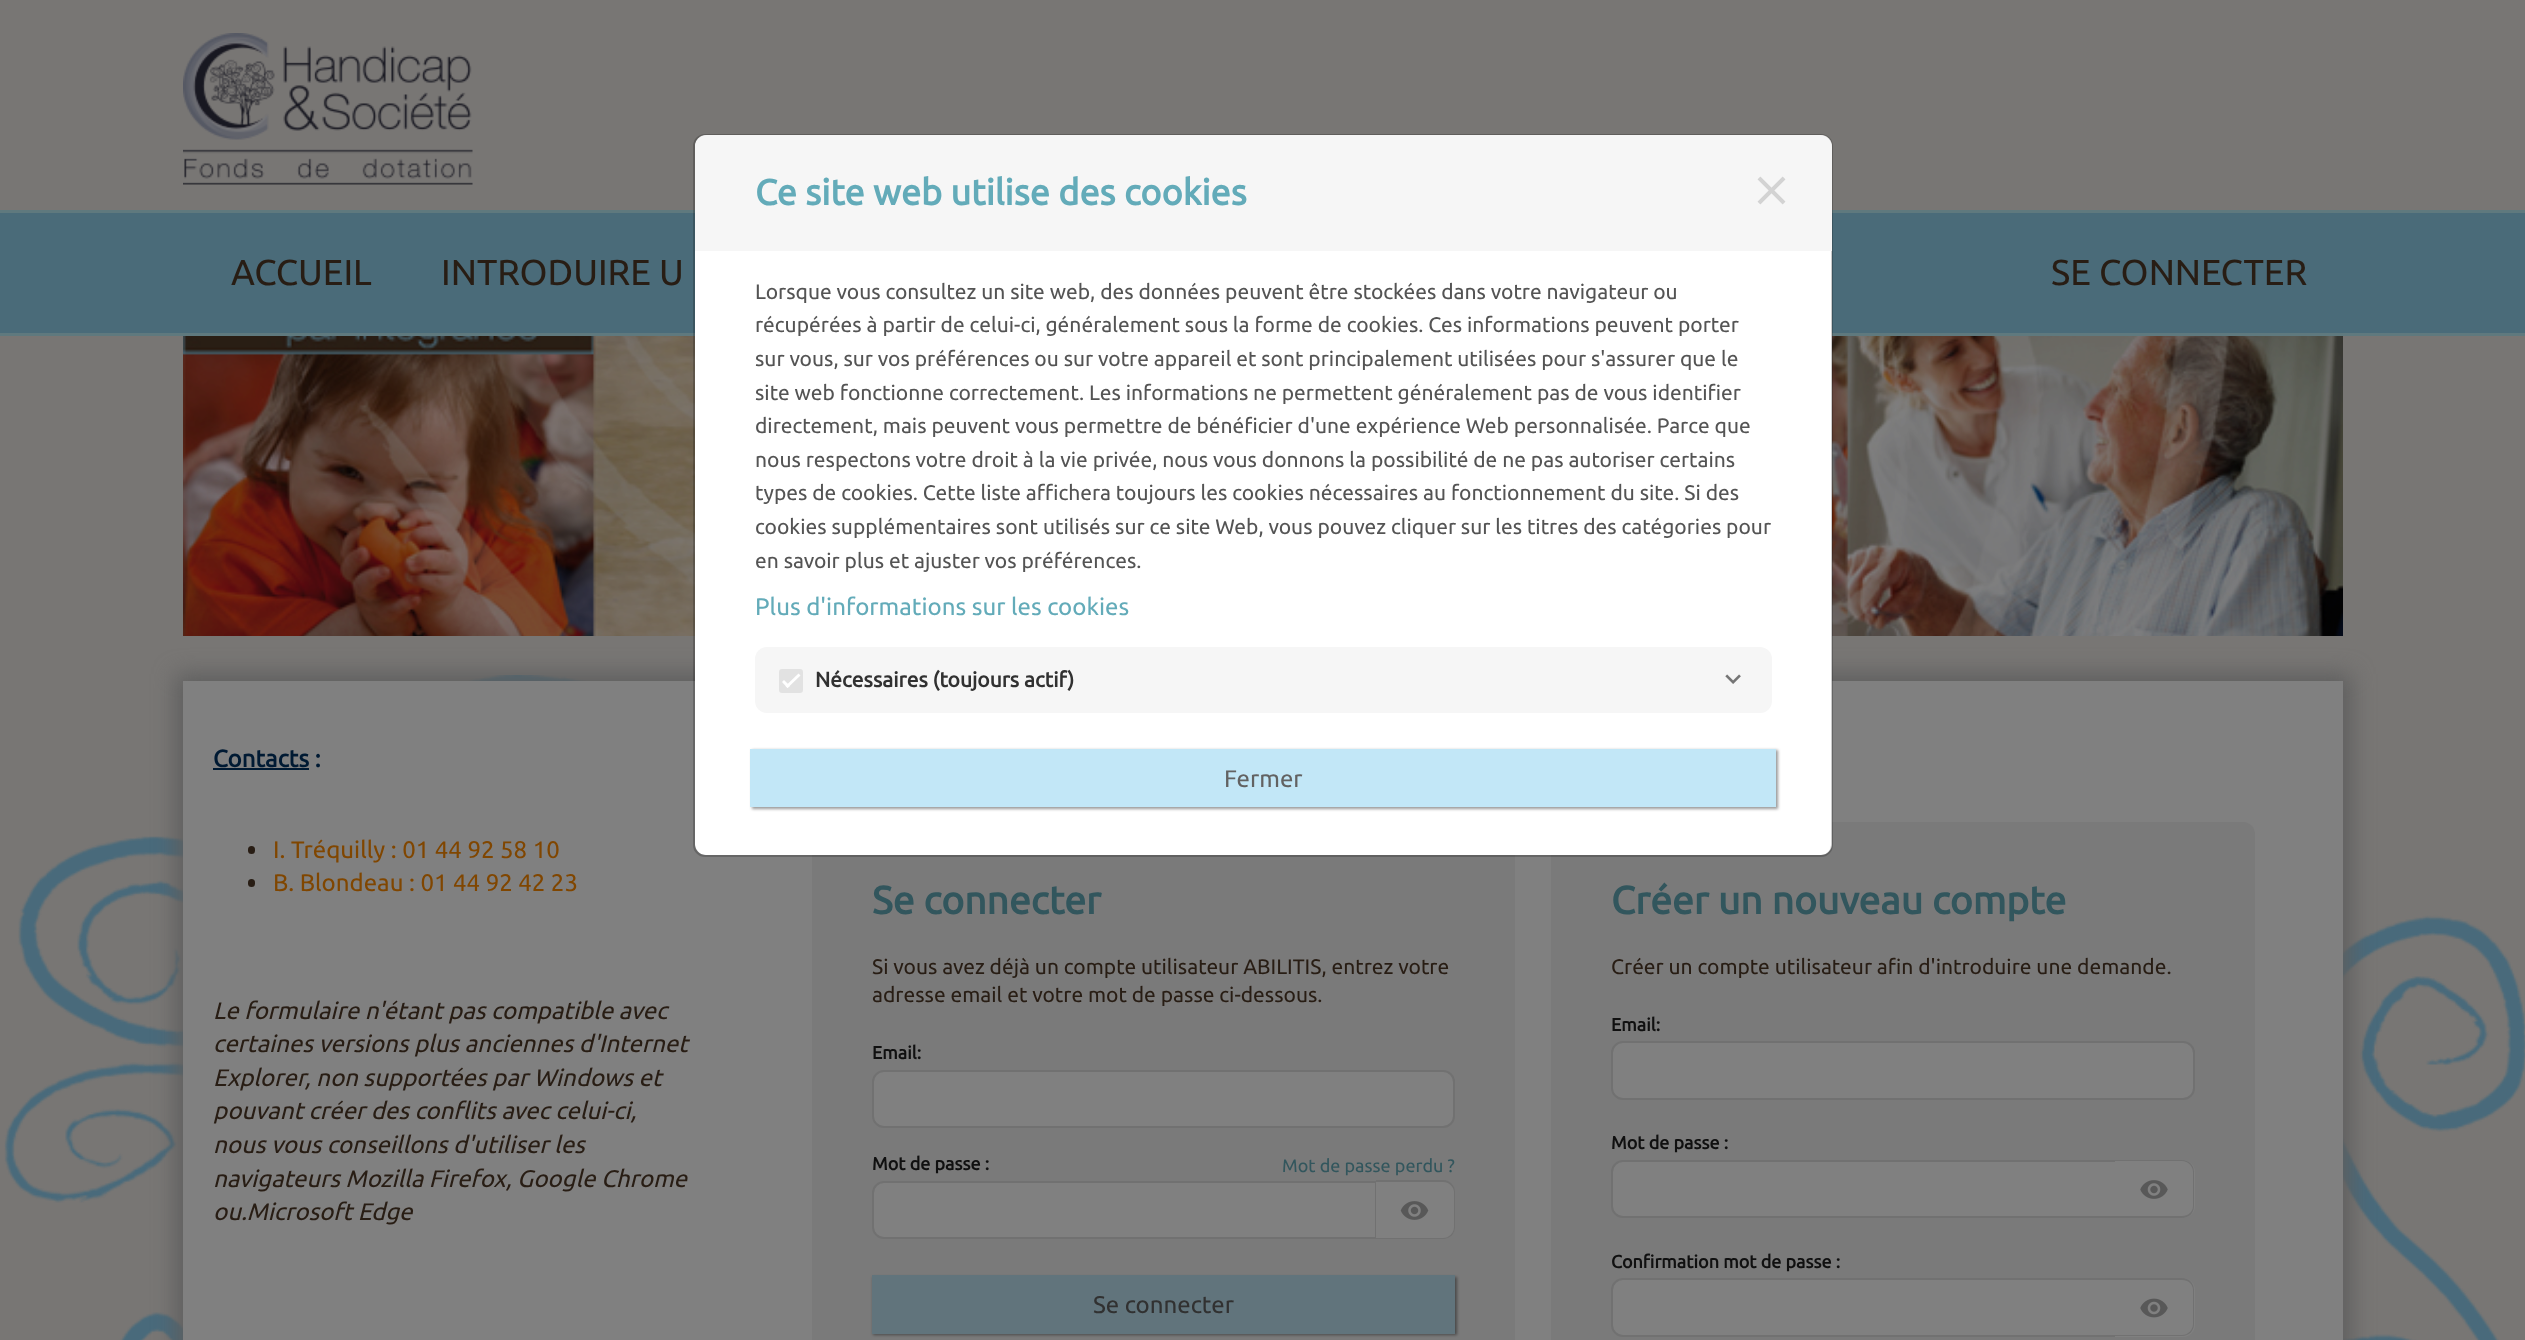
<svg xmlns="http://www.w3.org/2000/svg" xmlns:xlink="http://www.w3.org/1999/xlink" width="2525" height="1340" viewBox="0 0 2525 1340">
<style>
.cls-1{font:bold 36px Ubuntu;fill:#63abb9}
.cls-2{font:21px Ubuntu;fill:#545454}
.cls-3{font:24px Ubuntu;fill:#63abb9}
.cls-4{font:bold 21px Ubuntu;fill:#313131}
.cls-5{font:24px Ubuntu;fill:#626262}
.cls-6{font:36px Ubuntu;fill:#281d14}
.cls-7{font:bold 24px Ubuntu;fill:#001a33}
.cls-8{font:24px Ubuntu;fill:#804600}
.cls-9{font:italic 24px Ubuntu;fill:#281d14}
.cls-10{font:bold 39px Ubuntu;fill:#32565d}
.cls-11{font:21px Ubuntu;fill:#281d14}
.cls-12{font:bold 18px Ubuntu;fill:#101010}
.cls-13{font:18px Ubuntu;fill:#32565d}
.cls-14{font:24px Ubuntu;fill:#313131}
</style>
<rect width="100%" height="100%" fill="#787674"/>
<image xlink:href="image0.png" x="4" y="675" width="2521" height="665"/>
<rect fill="#4a6b79" x="0" y="213" width="2525" height="120"/>
<rect fill="#5f797e" x="0" y="210" width="2525" height="3"/>
<rect fill="#5f797e" x="0" y="333" width="2525" height="3"/>
<image xlink:href="image4.png" x="183" y="336" width="2160" height="300"/>
<rect fill="#5e5e5e" filter="blur(11px)" x="176" y="674" width="2175" height="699"/>
<rect fill="#808080" x="183" y="681" width="2160" height="659"/>
<rect fill="#7a7a7a" x="1551" y="822" width="704" height="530" rx="12"/>
<rect fill="#ffffff" x="695" y="135" width="1137" height="720" rx="11"/>
<rect fill="#7a7a7a" x="812" y="855" width="703" height="485"/>
<rect fill="none" stroke="#000000" stroke-opacity="0.2" stroke-width="2" x="694" y="135" width="1138" height="721" rx="11"/>
<path fill="#f6f6f6" d="M707 135H1820C1826.5 135 1832 140.5 1832 147V251H695V147C695 140.5 700.5 135 707 135Z"/>
<image xlink:href="image1.png" x="1757" y="176" width="29" height="29"/>
<rect fill="#f6f6f6" x="755" y="647" width="1017" height="66" rx="12"/>
<rect fill="#e2e2e2" stroke="#e2e2e2" stroke-width="3" x="780.5" y="670.5" width="21" height="21" rx="1.5"/>
<path fill="#ffffff" d="M785.5 686L798.5 673.5L800.5 675.5L787.5 688Z"/>
<path fill="#ffffff" d="M782 682L784 680L790 686L787.5 688Z"/>
<image xlink:href="image2.png" x="1725" y="674" width="16" height="10"/>
<rect fill="#000000" fill-opacity="0.4" filter="blur(1.5px)" x="752" y="750" width="1026" height="59"/>
<rect fill="#c2e7f7" x="750" y="749" width="1026" height="58"/>
<image xlink:href="image3.png" x="183" y="33" width="290" height="152"/>
<rect fill="#001a33" x="213" y="768" width="96" height="2"/>
<rect fill="#281d14" x="248" y="846" width="7" height="8" rx="3.5"/>
<rect fill="#281d14" x="248" y="879" width="7" height="8" rx="3.5"/>
<rect fill="#808080" stroke="#717171" stroke-width="2" x="873" y="1071" width="581" height="56" rx="11"/>
<path fill="#808080" stroke="#717171" stroke-width="2" d="M884 1182H1376V1238H884C878 1238 873 1233 873 1227V1193C873 1187 878 1182 884 1182Z"/>
<path fill="#808080" d="M1376 1181H1443C1449.5 1181 1455 1186.5 1455 1193V1227C1455 1233.5 1449.5 1239 1443 1239H1376Z"/>
<path fill="#717171" fill-rule="evenodd" d="M1376 1180H1443C1450 1180 1455 1186 1455 1192V1227C1455 1234 1450 1239 1443 1239H1376ZM1376 1182H1443C1449 1182 1454 1187 1454 1192V1227C1454 1233 1449 1238 1443 1238H1376Z"/>
<image xlink:href="image5.png" x="1400" y="1201" width="29" height="19"/>
<rect fill="#000000" fill-opacity="0.4" filter="blur(1.5px)" x="873" y="1277" width="584" height="58"/>
<rect fill="#61747c" x="872" y="1275" width="583" height="59"/>
<rect fill="#808080" stroke="#717171" stroke-width="2" x="1612" y="1042" width="582" height="57" rx="11"/>
<path fill="#808080" stroke="#717171" stroke-width="2" d="M1623 1161H2116V1217H1623C1617 1217 1612 1212 1612 1206V1172C1612 1166 1617 1161 1623 1161Z"/>
<path fill="#808080" d="M2115 1160H2183C2189.5 1160 2195 1165.5 2195 1172V1206C2195 1212.5 2189.5 1218 2183 1218H2115Z"/>
<path fill="#717171" fill-rule="evenodd" d="M2115 1160H2182C2189 1160 2194 1165 2194 1172V1206C2194 1213 2189 1218 2182 1218H2115ZM2115 1161H2182C2188 1161 2193 1166 2193 1172V1206C2193 1212 2188 1216 2182 1216H2115Z"/>
<image xlink:href="image6.png" x="2140" y="1180" width="28" height="19"/>
<path fill="#808080" stroke="#717171" stroke-width="2" d="M1623 1279H2116V1336H1623C1617 1336 1612 1331 1612 1325V1290C1612 1284 1617 1279 1623 1279Z"/>
<path fill="#808080" d="M2115 1278H2183C2189.5 1278 2195 1283.5 2195 1290V1325C2195 1331.5 2189.5 1337 2183 1337H2115Z"/>
<path fill="#717171" fill-rule="evenodd" d="M2115 1278H2182C2189 1278 2194 1283 2194 1290V1324C2194 1331 2189 1336 2182 1336H2115ZM2115 1280H2182C2188 1280 2193 1284 2193 1290V1324C2193 1330 2188 1335 2182 1335H2115Z"/>
<image xlink:href="image7.png" x="2140" y="1298" width="28" height="20"/>
<text class="cls-1" x="755" y="205">Ce site web utilise des cookies</text>
<text class="cls-2"><tspan x="755" y="299">Lorsque vous consultez un site web, des données peuvent être stockées dans votre navigateur ou</tspan><tspan x="755" y="332">récupérées à partir de celui-ci, généralement sous la forme de cookies. Ces informations peuvent porter</tspan><tspan x="755" y="366">sur vous, sur vos préférences ou sur votre appareil et sont principalement utilisées pour s'assurer que le</tspan><tspan x="755" y="400">site web fonctionne correctement. Les informations ne permettent généralement pas de vous identifier</tspan><tspan x="755" y="433">directement, mais peuvent vous permettre de bénéficier d'une expérience Web personnalisée. Parce que</tspan><tspan x="755" y="467">nous respectons votre droit à la vie privée, nous vous donnons la possibilité de ne pas autoriser certains</tspan><tspan x="755" y="500">types de cookies. Cette liste affichera toujours les cookies nécessaires au fonctionnement du site. Si des</tspan><tspan x="755" y="534">cookies supplémentaires sont utilisés sur ce site Web, vous pouvez cliquer sur les titres des catégories pour</tspan><tspan x="755" y="568">en savoir plus et ajuster vos préférences.</tspan></text>
<text class="cls-3" x="755" y="615">Plus d'informations sur les cookies</text>
<text class="cls-4" x="815" y="687">Nécessaires (toujours actif)</text>
<text class="cls-5" x="1224" y="787">Fermer</text>
<text class="cls-6" x="231" y="285">ACCUEIL</text>
<text class="cls-6" x="441" y="285">INTRODUIRE U</text>
<text class="cls-6" x="2051" y="285">SE CONNECTER</text>
<text class="cls-7" x="213" y="767">Contacts :</text>
<text class="cls-8"><tspan x="273" y="858">I. Tréquilly : 01 44 92 58 10</tspan><tspan x="273" y="891">B. Blondeau : 01 44 92 42 23</tspan></text>
<text class="cls-9"><tspan x="213" y="1019">Le formulaire n'étant pas compatible avec</tspan><tspan x="213" y="1052">certaines versions plus anciennes d'Internet</tspan><tspan x="213" y="1086">Explorer, non supportées par Windows et</tspan><tspan x="213" y="1119">pouvant créer des conflits avec celui-ci,</tspan><tspan x="213" y="1153">nous vous conseillons d'utiliser les</tspan><tspan x="213" y="1187">navigateurs Mozilla Firefox, Google Chrome</tspan><tspan x="213" y="1220">ou.Microsoft Edge</tspan></text>
<text class="cls-10" x="872" y="914">Se connecter</text>
<text class="cls-11"><tspan x="872" y="974">Si vous avez déjà un compte utilisateur ABILITIS, entrez votre</tspan><tspan x="872" y="1002">adresse email et votre mot de passe ci-dessous.</tspan></text>
<text class="cls-12" x="872" y="1059">Email:</text>
<text class="cls-12" x="872" y="1170">Mot de passe :</text>
<text class="cls-13" x="1282" y="1172">Mot de passe perdu ?</text>
<text class="cls-14" x="1093" y="1313">Se connecter</text>
<text class="cls-10" x="1611" y="914">Créer un nouveau compte</text>
<text class="cls-11" x="1611" y="974">Créer un compte utilisateur afin d'introduire une demande.</text>
<text class="cls-12" x="1611" y="1031">Email:</text>
<text class="cls-12" x="1611" y="1149">Mot de passe :</text>
<text class="cls-12" x="1611" y="1268">Confirmation mot de passe :</text>
</svg>
